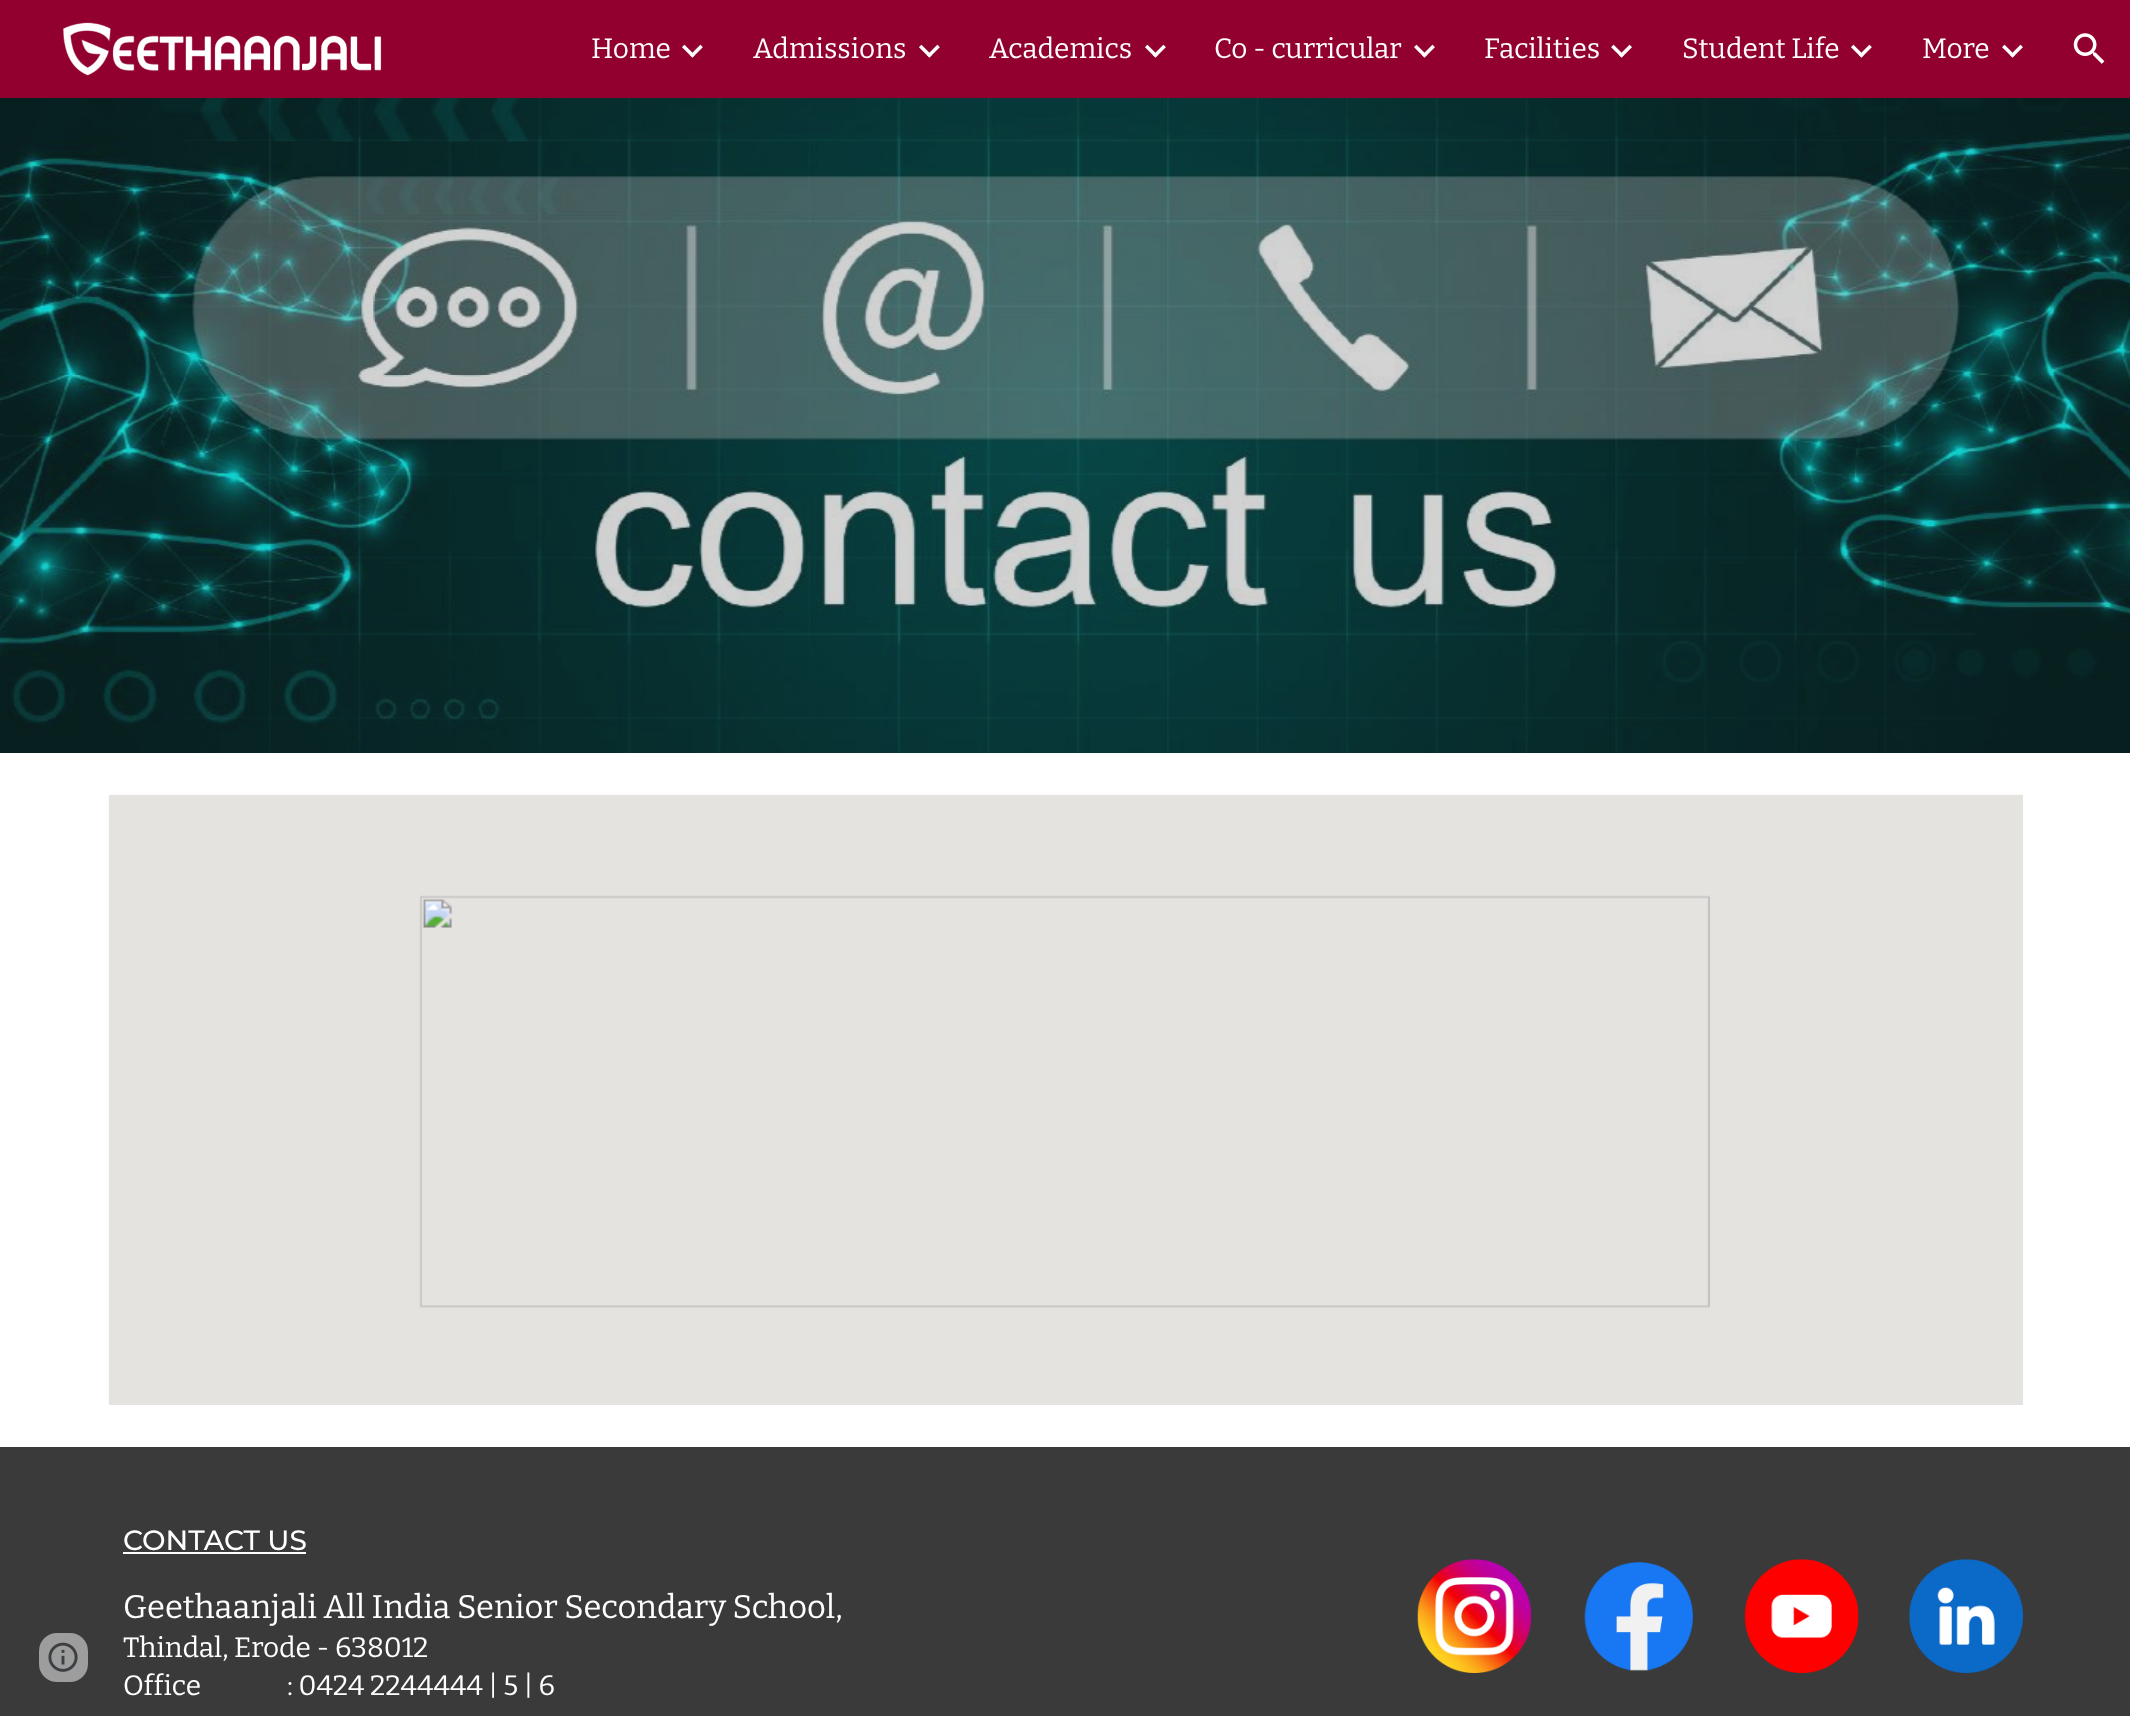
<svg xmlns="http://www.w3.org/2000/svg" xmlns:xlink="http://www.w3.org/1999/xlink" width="2130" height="1716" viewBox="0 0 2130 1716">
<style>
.cls-1{font:28px Bitter;fill:#ffffff}
.cls-2{font:500 28px Montserrat;fill:#ffffff}
.cls-3{font:32.7px Bitter;fill:#ffffff}
</style>
<rect width="100%" height="100%" fill="#ffffff"/>
<rect fill="#91002e" x="0" y="0" width="2130" height="98"/>
<image xlink:href="image0.png" x="63" y="22" width="319" height="54"/>
<image xlink:href="image1.png" x="682" y="44" width="21" height="14"/>
<image xlink:href="image2.png" x="919" y="44" width="21" height="14"/>
<image xlink:href="image3.png" x="1145" y="44" width="21" height="14"/>
<image xlink:href="image4.png" x="1414" y="44" width="21" height="14"/>
<image xlink:href="image5.png" x="1611" y="44" width="21" height="14"/>
<image xlink:href="image6.png" x="1851" y="44" width="21" height="14"/>
<image xlink:href="image7.png" x="2002" y="44" width="21" height="14"/>
<image xlink:href="image8.png" x="2073" y="33" width="32" height="31"/>
<image xlink:href="image9.png" x="0" y="98" width="2130" height="655"/>
<image xlink:href="image10.png" x="108" y="794" width="1915" height="611"/>
<rect fill="#3a3a3a" x="0" y="1447" width="2130" height="269"/>
<rect fill="#9d9d9d" x="39" y="1633" width="49" height="49" rx="18"/>
<image xlink:href="image11.png" x="48" y="1642" width="30" height="30"/>
<rect fill="#ffffff" x="123" y="1552" width="183" height="2"/>
<image xlink:href="image12.png" x="1417" y="1559" width="115" height="114"/>
<image xlink:href="image13.png" x="1584" y="1562" width="110" height="109"/>
<image xlink:href="image14.png" x="1744" y="1559" width="115" height="114"/>
<image xlink:href="image15.png" x="1909" y="1559" width="114" height="114"/>
<text class="cls-1" x="591" y="58">Home</text>
<text class="cls-1" x="753" y="58">Admissions</text>
<text class="cls-1" x="989" y="58">Academics</text>
<text class="cls-1" x="1214" y="58">Co - curricular</text>
<text class="cls-1" x="1484" y="58">Facilities</text>
<text class="cls-1" x="1682" y="58">Student Life</text>
<text class="cls-1" x="1922" y="58">More</text>
<text class="cls-2" x="123" y="1550">CONTACT US</text>
<text class="cls-3" x="123" y="1618">Geethaanjali All India Senior Secondary School,</text>
<text class="cls-1"><tspan x="123" y="1657">Thindal, Erode - 638012</tspan><tspan x="123" y="1695">Office</tspan></text>
<text class="cls-1" x="287" y="1695">: 0424 2244444 | 5 | 6</text>
</svg>
